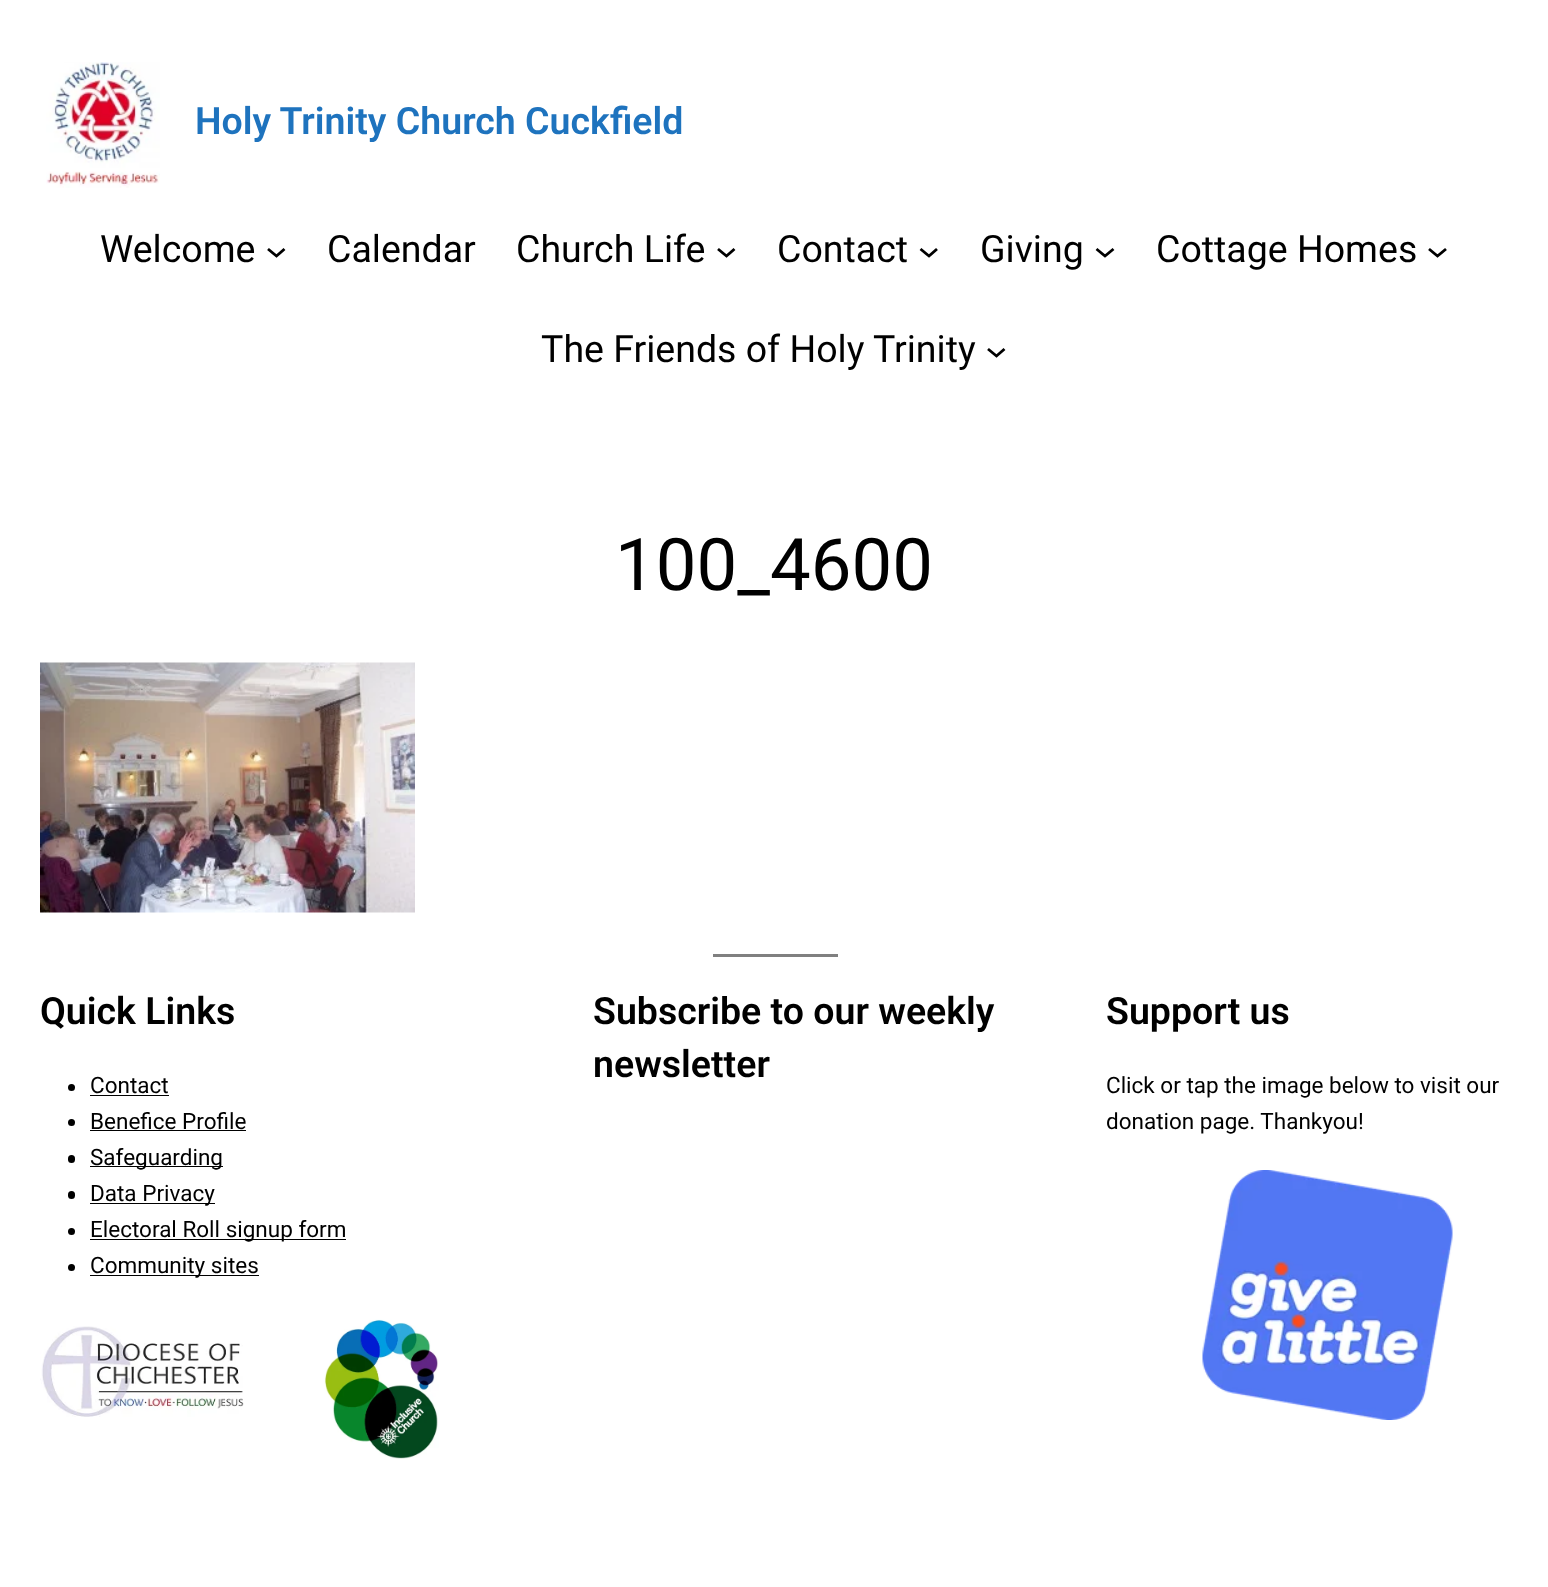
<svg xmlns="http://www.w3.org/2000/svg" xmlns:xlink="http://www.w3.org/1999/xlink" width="1548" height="1587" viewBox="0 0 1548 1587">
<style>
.cls-1{font:600 37.5px Roboto;fill:#1e73be}
.cls-2{font:37.5px Roboto;fill:#000000}
.cls-3{font:72.5px Roboto;fill:#000000}
.cls-4{font:600 37.5px Roboto;fill:#000000}
.cls-5{font:22.5px Roboto;fill:#000000}
</style>
<rect width="100%" height="100%" fill="#ffffff"/>
<image xlink:href="image0.png" x="46" y="62" width="114" height="126"/>
<path fill="none" stroke="#000000" stroke-width="2.8" d="M268 249L276.5 256L284.5 249"/>
<path fill="none" stroke="#000000" stroke-width="2.8" d="M718 249L726.5 256L734.5 249"/>
<path fill="none" stroke="#000000" stroke-width="2.8" d="M920.5 249L929 256L937 249"/>
<path fill="none" stroke="#000000" stroke-width="2.8" d="M1096.5 249L1105 256L1113.5 249"/>
<path fill="none" stroke="#000000" stroke-width="2.8" d="M1429 249L1437.5 256L1446 249"/>
<path fill="none" stroke="#000000" stroke-width="2.8" d="M988 349L996.5 356L1004.5 349"/>
<image xlink:href="image1.png" x="40" y="662" width="375" height="251"/>
<rect fill="#808080" x="713" y="954" width="125" height="3"/>
<circle fill="#000000" cx="71.5" cy="1087.5" r="3.5"/>
<rect fill="#000000" x="90" y="1095" width="79" height="1"/>
<circle fill="#000000" cx="71.5" cy="1122.5" r="3.5"/>
<rect fill="#000000" x="90" y="1130" width="156" height="1"/>
<rect fill="#000000" x="68" y="1155" width="7" height="8" rx="3.5"/>
<rect fill="#000000" x="90" y="1166" width="133" height="1"/>
<rect fill="#000000" x="68" y="1191" width="7" height="8" rx="3.5"/>
<rect fill="#000000" x="90" y="1203" width="125" height="1"/>
<circle fill="#000000" cx="71.5" cy="1231.5" r="3.5"/>
<rect fill="#000000" x="90" y="1239" width="256" height="1"/>
<circle fill="#000000" cx="71.5" cy="1267.5" r="3.5"/>
<rect fill="#000000" x="90" y="1275" width="169" height="1"/>
<image xlink:href="image2.png" x="40" y="1326" width="204" height="91"/>
<image xlink:href="image3.png" x="324" y="1319" width="115" height="140"/>
<image xlink:href="image4.png" x="1202" y="1170" width="251" height="250"/>
<text class="cls-1" x="195" y="134">Holy Trinity Church Cuckfield</text>
<text class="cls-2" x="100" y="262">Welcome</text>
<text class="cls-2" x="327" y="262">Calendar</text>
<text class="cls-2" x="516" y="262">Church Life</text>
<text class="cls-2" x="777" y="262">Contact</text>
<text class="cls-2" x="980" y="262">Giving</text>
<text class="cls-2" x="1156" y="262">Cottage Homes</text>
<text class="cls-2" x="541" y="362">The Friends of Holy Trinity</text>
<text class="cls-3" x="615" y="590">100_4600</text>
<text class="cls-4" x="40" y="1024">Quick Links</text>
<text class="cls-5"><tspan x="90" y="1093">Contact</tspan><tspan x="90" y="1129">Benefice Profile</tspan><tspan x="90" y="1165">Safeguarding</tspan><tspan x="90" y="1201">Data Privacy</tspan><tspan x="90" y="1237">Electoral Roll signup form</tspan><tspan x="90" y="1273">Community sites</tspan></text>
<text class="cls-4"><tspan x="593" y="1024">Subscribe to our weekly</tspan><tspan x="593" y="1077">newsletter</tspan></text>
<text class="cls-4" x="1106" y="1024">Support us</text>
<text class="cls-5"><tspan x="1106" y="1093">Click or tap the image below to visit our</tspan><tspan x="1106" y="1129">donation page. Thankyou!</tspan></text>
</svg>
